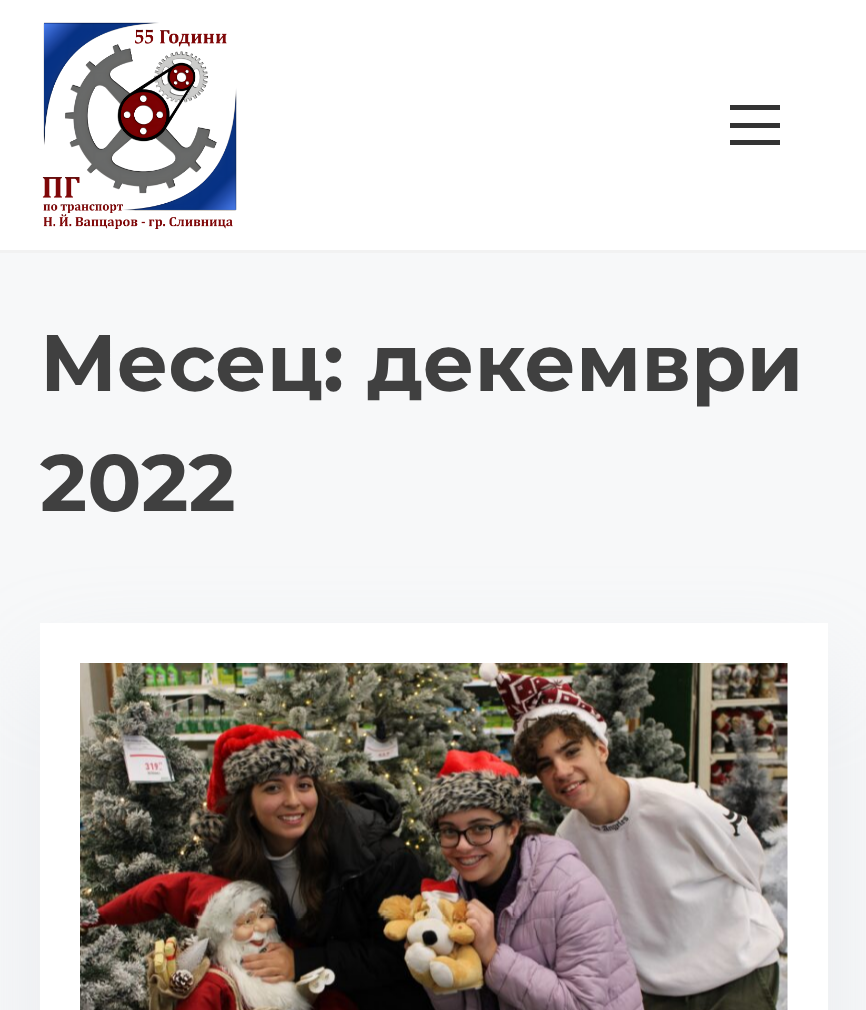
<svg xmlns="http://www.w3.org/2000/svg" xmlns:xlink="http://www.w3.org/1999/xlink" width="866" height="1010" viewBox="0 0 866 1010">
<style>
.cls-1{font:bold 80px Montserrat;fill:#404040}
</style>
<rect width="100%" height="100%" fill="#f7f8f9"/>
<rect fill="#ffffff" x="0" y="0" width="866" height="250"/>
<rect fill="#f2f2f2" x="0" y="250" width="866" height="3"/>
<image xlink:href="image0.png" x="42" y="22" width="195" height="207"/>
<rect fill="#333333" x="730" y="140" width="50" height="5"/>
<rect fill="#333333" x="730" y="105" width="50" height="5"/>
<rect fill="#333333" x="730" y="123" width="50" height="5"/>
<rect fill="#c1c7d4" fill-opacity="0.25" filter="blur(50px)" x="40" y="673" width="788" height="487"/>
<rect fill="#ffffff" x="40" y="623" width="788" height="387"/>
<image xlink:href="image1.png" x="80" y="663" width="708" height="347"/>
<text class="cls-1" x="40" y="391">Месец:</text>
<text class="cls-1" x="367" y="391">декември</text>
<text class="cls-1" x="40" y="511">2022</text>
</svg>
